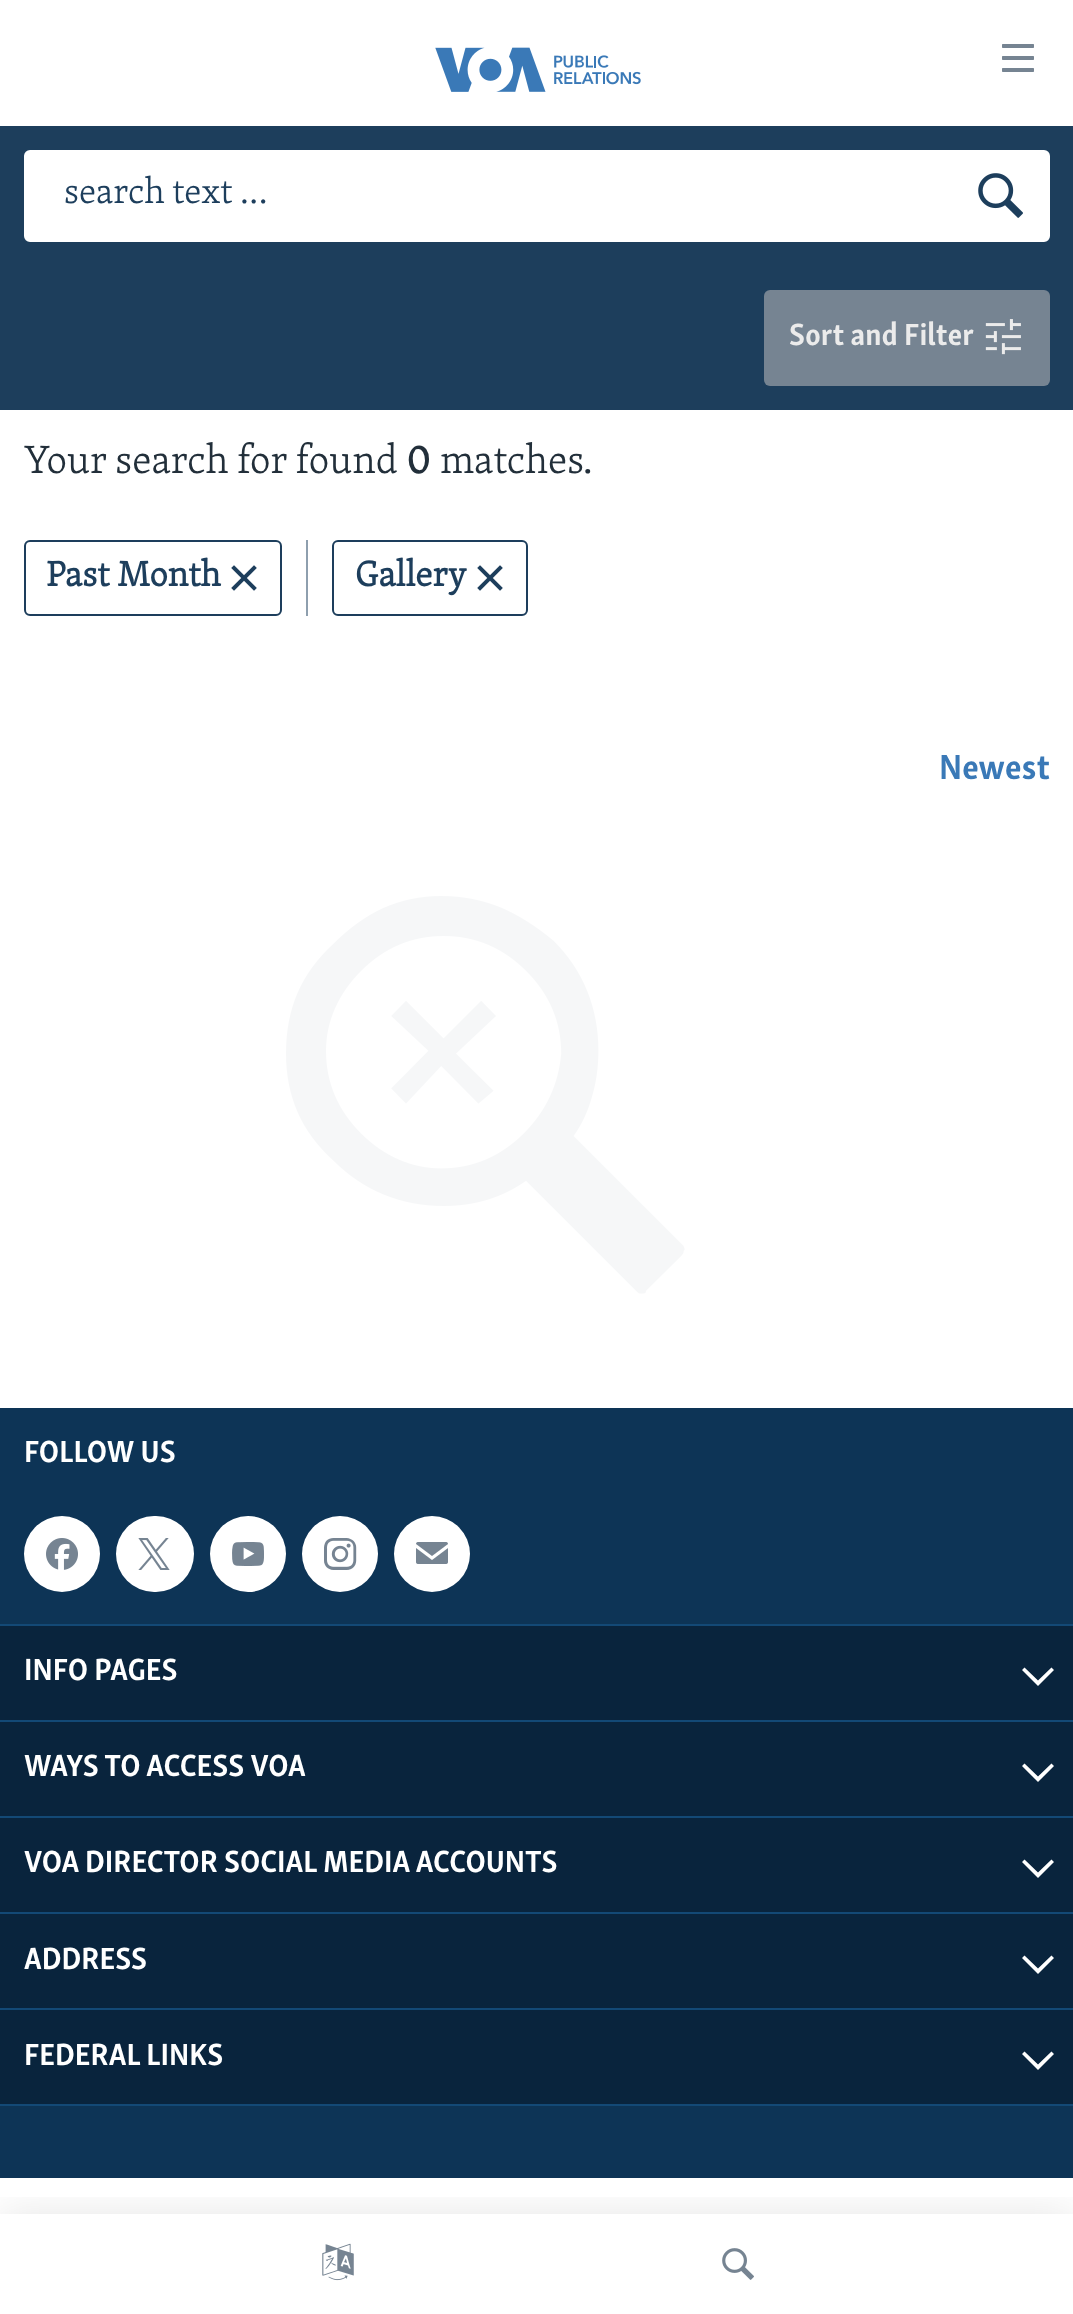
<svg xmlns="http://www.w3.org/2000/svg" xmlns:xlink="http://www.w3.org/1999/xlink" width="1073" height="2314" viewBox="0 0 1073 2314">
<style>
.cls-1{font:300 36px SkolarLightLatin;fill:#1d3e5c}
.cls-2{font:bold 31.5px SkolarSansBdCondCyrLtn;fill:#ebebeb}
.cls-3{font:300 40.5px SkolarLightLatin;fill:#222f3a}
.cls-4{font:bold 40.5px SkolarLightLatin;fill:#222f3a}
.cls-5{font:bold 36px SkolarLightLatin;fill:#1d3e5c}
.cls-6{font:bold 36px SkolarSansBdCondCyrLtn;fill:#3a79b7}
.cls-7{font:bold 31.5px SkolarSansBdCondCyrLtn;fill:#ffffff}
</style>
<defs>
<clipPath id="clip1"><rect x="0" y="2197" width="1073" height="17"/></clipPath>
</defs>
<rect width="100%" height="100%" fill="#ffffff"/>
<image xlink:href="image0.png" x="435" y="47" width="206" height="45"/>
<image xlink:href="image1.png" x="1002" y="44" width="32" height="28"/>
<rect fill="#0d3456" x="0" y="1408" width="1073" height="770"/>
<g clip-path="url(#clip1)">
<rect fill="#000000" fill-opacity="0.1" filter="blur(20px)" x="0" y="2214" width="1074" height="100"/>
</g>
<image xlink:href="image2.png" x="322" y="2243" width="32" height="38"/>
<image xlink:href="image3.png" x="722" y="2248" width="32" height="32"/>
<rect fill="#1d3e5c" x="0" y="126" width="1073" height="284"/>
<rect fill="#ffffff" stroke="#ffffff" stroke-width="2" x="25" y="151" width="1024" height="90" rx="5"/>
<image xlink:href="image4.png" x="978" y="173" width="45" height="45"/>
<rect fill="#768492" x="764" y="290" width="286" height="96" rx="6"/>
<image xlink:href="image5.png" x="985" y="319" width="36" height="36"/>
<rect fill="none" stroke="#1d3e5c" stroke-width="2" x="25" y="541" width="256" height="74" rx="5"/>
<image xlink:href="image6.png" x="231" y="565" width="26" height="26"/>
<rect fill="#8e9fae" x="306" y="540" width="2" height="76"/>
<rect fill="none" stroke="#1d3e5c" stroke-width="2" x="333" y="541" width="194" height="74" rx="5"/>
<image xlink:href="image6.png" x="477" y="565" width="26" height="26"/>
<image xlink:href="image7.png" x="286" y="896" width="399" height="398"/>
<rect fill="#134976" x="0" y="2104" width="1073" height="2"/>
<circle fill="#ffffff" cx="62" cy="1554" r="38"/>
<image xlink:href="image8.png" x="46" y="1538" width="32" height="32"/>
<rect fill="#ffffff" x="116" y="1516" width="78" height="76" rx="38"/>
<image xlink:href="image9.png" x="138" y="1538" width="32" height="32"/>
<circle fill="#ffffff" cx="248" cy="1554" r="38"/>
<image xlink:href="image10.png" x="232" y="1542" width="32" height="24"/>
<circle fill="#ffffff" cx="340" cy="1554" r="38"/>
<image xlink:href="image11.png" x="324" y="1538" width="33" height="32"/>
<circle fill="#ffffff" cx="432" cy="1554" r="38"/>
<image xlink:href="image12.png" x="416" y="1542" width="32" height="22"/>
<rect fill="#134976" x="0" y="1624" width="1073" height="2"/>
<rect fill="#09243d" x="0" y="1626" width="1073" height="94"/>
<path fill="#ffffff" d="M1022 1670L1038 1686L1054 1670L1051.5 1667.5L1038 1680.5L1024.5 1667.5Z"/>
<rect fill="#134976" x="0" y="1720" width="1073" height="2"/>
<rect fill="#09243d" x="0" y="1722" width="1073" height="94"/>
<path fill="#ffffff" d="M1022 1766L1038 1782L1054 1766L1051.5 1763.5L1038 1776.5L1024.5 1763.5Z"/>
<rect fill="#134976" x="0" y="1816" width="1073" height="2"/>
<rect fill="#09243d" x="0" y="1818" width="1073" height="94"/>
<path fill="#ffffff" d="M1022 1862L1038 1878L1054 1862L1051.5 1859.5L1038 1872.5L1024.5 1859.5Z"/>
<rect fill="#134976" x="0" y="1912" width="1073" height="2"/>
<rect fill="#09243d" x="0" y="1914" width="1073" height="94"/>
<path fill="#ffffff" d="M1022 1958L1038 1974L1054 1958L1051.5 1955.5L1038 1968.5L1024.5 1955.5Z"/>
<rect fill="#134976" x="0" y="2008" width="1073" height="2"/>
<rect fill="#09243d" x="0" y="2010" width="1073" height="94"/>
<path fill="#ffffff" d="M1022 2054L1038 2070L1054 2054L1051.5 2051.5L1038 2064.5L1024.5 2051.5Z"/>
<text class="cls-1" x="64" y="203">search text ...</text>
<text class="cls-2" x="789" y="345">Sort and Filter</text>
<text class="cls-3" x="24" y="473">Your search for found</text>
<text class="cls-4" x="406" y="473">0</text>
<text class="cls-3" x="440" y="473">matches.</text>
<text class="cls-5" x="46" y="586">Past Month</text>
<text class="cls-5" x="355" y="586">Gallery</text>
<text class="cls-6" x="939" y="779">Newest</text>
<text class="cls-7" x="24" y="1462">FOLLOW US</text>
<text class="cls-7" x="24" y="1680">INFO PAGES</text>
<text class="cls-7" x="24" y="1776">WAYS TO ACCESS VOA</text>
<text class="cls-7" x="24" y="1872">VOA DIRECTOR SOCIAL MEDIA ACCOUNTS</text>
<text class="cls-7" x="24" y="1969">ADDRESS</text>
<text class="cls-7" x="24" y="2065">FEDERAL LINKS</text>
</svg>
